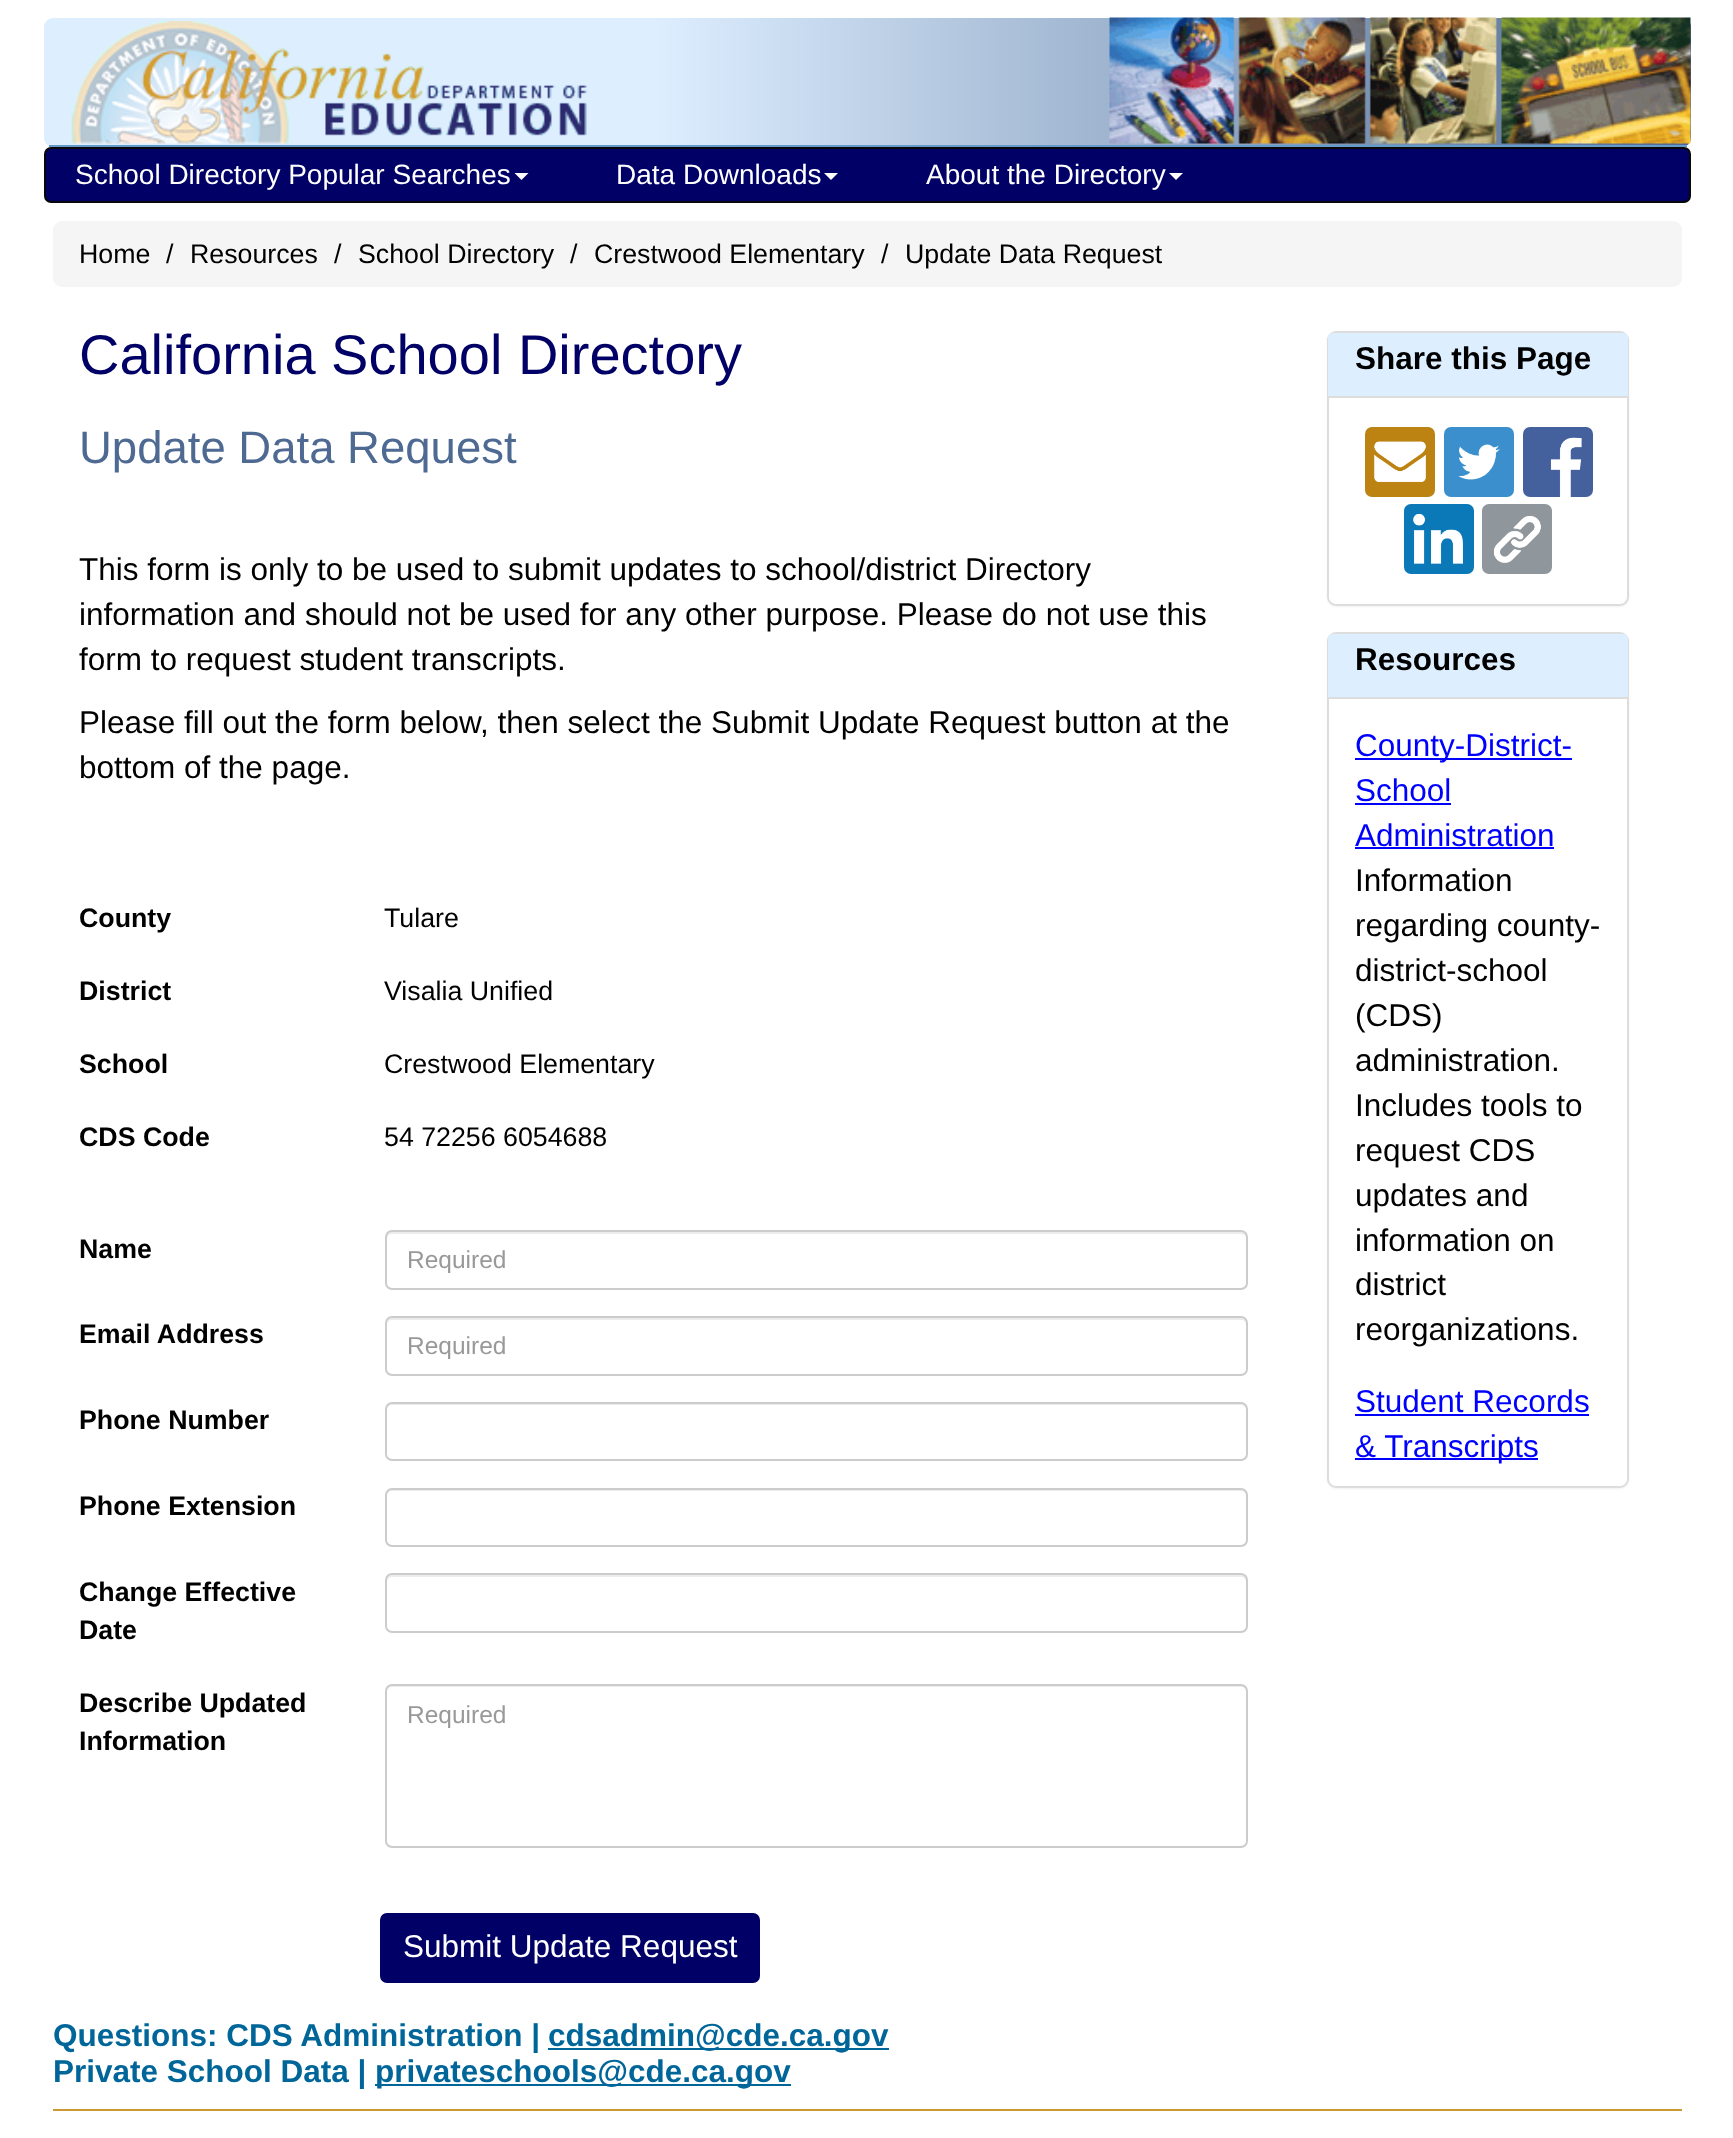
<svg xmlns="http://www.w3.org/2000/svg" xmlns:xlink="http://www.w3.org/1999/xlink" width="1733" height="2138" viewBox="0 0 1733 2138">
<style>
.cls-1{font:28px Liberation Sans;fill:#ffffff}
.cls-2{font:26.75px Liberation Sans;fill:#000000}
.cls-3{font:56px Liberation Sans;fill:#000066}
.cls-4{font:45.5px Liberation Sans;fill:#4f6a92}
.cls-5{font:31.5px Liberation Sans;fill:#000000}
.cls-6{font:bold 26.75px Liberation Sans;fill:#000000}
.cls-7{font:24.5px Liberation Sans;fill:#999999}
.cls-8{font:31.5px Liberation Sans;fill:#ffffff}
.cls-9{font:bold 31.5px Liberation Sans;fill:#000000}
.cls-10{font:31.5px Liberation Sans;fill:#0000ff}
.cls-11{font:bold 31.5px Liberation Sans;fill:#006699}
</style>
<defs>
<linearGradient id="g1" gradientUnits="userSpaceOnUse" x1="44" y1="81" x2="1691" y2="81"><stop offset="0.01" stop-color="#ddeeff"/><stop offset="0.37" stop-color="#ddeeff"/><stop offset="1" stop-color="#4f6a92"/></linearGradient>
</defs>
<rect width="100%" height="100%" fill="#ffffff"/>
<rect fill="url(#g1)" x="44" y="18" width="1647" height="129" rx="9"/>
<rect fill="#6699cc" x="49" y="145" width="1638" height="2"/>
<image xlink:href="image0.png" x="71" y="21" width="516" height="123"/>
<image xlink:href="image1.png" x="1109" y="17" width="582" height="127"/>
<rect fill="#000066" stroke="#080808" stroke-width="2" x="45" y="148" width="1645" height="54" rx="6"/>
<path fill="#ffffff" d="M514.5 173H528.5L521.5 180Z"/>
<path fill="#ffffff" d="M824 173H838L831 180Z"/>
<path fill="#ffffff" d="M1169 173H1183L1176 180Z"/>
<rect fill="#f5f5f5" x="53" y="221" width="1629" height="66" rx="9"/>
<path fill="#ececec" d="M392 1234H1241C1244 1234 1246 1236 1246 1239V1237C1246 1234 1244 1232 1241 1232H392C389 1232 387 1234 387 1237V1239C387 1236 389 1234 392 1234Z"/>
<rect fill="none" stroke="#cccccc" stroke-width="2" x="386" y="1231" width="861" height="58" rx="6"/>
<path fill="#ececec" d="M392 1320H1241C1244 1320 1246 1322 1246 1325V1323C1246 1320 1244 1318 1241 1318H392C389 1318 387 1320 387 1323V1325C387 1322 389 1320 392 1320Z"/>
<rect fill="none" stroke="#cccccc" stroke-width="2" x="386" y="1317" width="861" height="58" rx="6"/>
<path fill="#ececec" d="M392 1405H1241C1244 1405 1246 1408 1246 1410V1409C1246 1406 1244 1404 1241 1404H392C389 1404 387 1406 387 1409V1410C387 1408 389 1405 392 1405Z"/>
<rect fill="none" stroke="#cccccc" stroke-width="2" x="386" y="1403" width="861" height="57" rx="6"/>
<path fill="#ececec" d="M392 1491H1241C1244 1491 1246 1493 1246 1496V1494C1246 1491 1244 1489 1241 1489H392C389 1489 387 1491 387 1494V1496C387 1493 389 1491 392 1491Z"/>
<rect fill="none" stroke="#cccccc" stroke-width="2" x="386" y="1489" width="861" height="57" rx="6"/>
<path fill="#ececec" d="M392 1577H1241C1244 1577 1246 1579 1246 1582V1580C1246 1577 1244 1575 1241 1575H392C389 1575 387 1577 387 1580V1582C387 1579 389 1577 392 1577Z"/>
<rect fill="none" stroke="#cccccc" stroke-width="2" x="386" y="1574" width="861" height="58" rx="6"/>
<path fill="#ececec" d="M392 1687H1241C1244 1687 1246 1689 1246 1692V1690C1246 1687 1244 1685 1241 1685H392C389 1685 387 1687 387 1690V1692C387 1689 389 1687 392 1687Z"/>
<rect fill="none" stroke="#cccccc" stroke-width="2" x="386" y="1685" width="861" height="162" rx="6"/>
<rect fill="#000066" stroke="#000066" stroke-width="2" x="381" y="1914" width="378" height="68" rx="6"/>
<rect fill="#000000" fill-opacity="0.05" filter="blur(1px)" x="1327" y="333" width="302" height="274" rx="9"/>
<rect fill="#ffffff" stroke="#dddddd" stroke-width="2" x="1328" y="332" width="300" height="273" rx="8"/>
<path fill="#ddeeff" d="M1333 333H1623C1626 333 1628 335 1628 338V397H1328V338C1328 335 1330 333 1333 333Z"/>
<rect fill="#dddddd" x="1328" y="396" width="300" height="2"/>
<rect fill="#bc8312" x="1365" y="427" width="70" height="70" rx="7"/>
<rect fill="#3a8fcc" x="1444" y="427" width="70" height="70" rx="7"/>
<rect fill="#44619d" x="1523" y="427" width="70" height="70" rx="7"/>
<image xlink:href="image2.png" x="1374" y="441" width="52" height="42"/>
<image xlink:href="image3.png" x="1458" y="444" width="42" height="36"/>
<image xlink:href="image4.png" x="1550" y="437" width="32" height="60"/>
<rect fill="#0b78b7" x="1404" y="504" width="70" height="70" rx="7"/>
<rect fill="#8f979c" x="1482" y="504" width="70" height="70" rx="7"/>
<image xlink:href="image5.png" x="1413" y="513" width="50" height="51"/>
<image xlink:href="image6.png" x="1493" y="516" width="48" height="47"/>
<rect fill="#000000" fill-opacity="0.05" filter="blur(1px)" x="1327" y="634" width="302" height="855" rx="9"/>
<rect fill="#ffffff" stroke="#dddddd" stroke-width="2" x="1328" y="633" width="300" height="854" rx="8"/>
<path fill="#ddeeff" d="M1333 634H1623C1626 634 1628 636 1628 639V698H1328V639C1328 636 1330 634 1333 634Z"/>
<rect fill="#dddddd" x="1328" y="697" width="300" height="2"/>
<rect fill="#0000ff" x="1355" y="758" width="217" height="2"/>
<rect fill="#0000ff" x="1355" y="803" width="96" height="2"/>
<rect fill="#0000ff" x="1355" y="847" width="199" height="2"/>
<rect fill="#0000ff" x="1355" y="1414" width="234" height="2"/>
<rect fill="#0000ff" x="1355" y="1458" width="183" height="2"/>
<rect fill="#006699" x="548" y="2048" width="341" height="2"/>
<rect fill="#006699" x="375" y="2084" width="416" height="2"/>
<rect fill="#cc9933" x="53" y="2109" width="1629" height="2"/>
<text class="cls-1" x="75" y="184">School Directory Popular Searches</text>
<text class="cls-1" x="616" y="184">Data Downloads</text>
<text class="cls-1" x="926" y="184">About the Directory</text>
<text class="cls-2" x="79" y="263">Home</text>
<text class="cls-2" x="166" y="263">/</text>
<text class="cls-2" x="190" y="263">Resources</text>
<text class="cls-2" x="334" y="263">/</text>
<text class="cls-2" x="358" y="263">School Directory</text>
<text class="cls-2" x="570" y="263">/</text>
<text class="cls-2" x="594" y="263">Crestwood Elementary</text>
<text class="cls-2" x="881" y="263">/</text>
<text class="cls-2" x="905" y="263">Update Data Request</text>
<text class="cls-3" x="79" y="374">California School Directory</text>
<text class="cls-4" x="79" y="463">Update Data Request</text>
<text class="cls-5"><tspan x="79" y="580">This form is only to be used to submit updates to school/district Directory</tspan><tspan x="79" y="625">information and should not be used for any other purpose. Please do not use this</tspan><tspan x="79" y="670">form to request student transcripts.</tspan></text>
<text class="cls-5"><tspan x="79" y="733">Please fill out the form below, then select the Submit Update Request button at the</tspan><tspan x="79" y="778">bottom of the page.</tspan></text>
<text class="cls-6" x="79" y="927">County</text>
<text class="cls-2" x="384" y="927">Tulare</text>
<text class="cls-6" x="79" y="1000">District</text>
<text class="cls-2" x="384" y="1000">Visalia Unified</text>
<text class="cls-6" x="79" y="1073">School</text>
<text class="cls-2" x="384" y="1073">Crestwood Elementary</text>
<text class="cls-6" x="79" y="1146">CDS Code</text>
<text class="cls-2" x="384" y="1146">54 72256 6054688</text>
<text class="cls-6" x="79" y="1258">Name</text>
<text class="cls-7" x="407" y="1268">Required</text>
<text class="cls-6" x="79" y="1343">Email Address</text>
<text class="cls-7" x="407" y="1354">Required</text>
<text class="cls-6" x="79" y="1429">Phone Number</text>
<text class="cls-6" x="79" y="1515">Phone Extension</text>
<text class="cls-6"><tspan x="79" y="1601">Change Effective</tspan><tspan x="79" y="1639">Date</tspan></text>
<text class="cls-6"><tspan x="79" y="1712">Describe Updated</tspan><tspan x="79" y="1750">Information</tspan></text>
<text class="cls-7" x="407" y="1723">Required</text>
<text class="cls-8" x="403" y="1957">Submit Update Request</text>
<text class="cls-9" x="1355" y="369">Share this Page</text>
<text class="cls-9" x="1355" y="670">Resources</text>
<text class="cls-10"><tspan x="1355" y="756">County-District-</tspan><tspan x="1355" y="801">School</tspan><tspan x="1355" y="846">Administration</tspan></text>
<text class="cls-5"><tspan x="1355" y="891">Information</tspan><tspan x="1355" y="936">regarding county-</tspan><tspan x="1355" y="981">district-school</tspan><tspan x="1355" y="1026">(CDS)</tspan><tspan x="1355" y="1071">administration.</tspan><tspan x="1355" y="1116">Includes tools to</tspan><tspan x="1355" y="1161">request CDS</tspan><tspan x="1355" y="1206">updates and</tspan><tspan x="1355" y="1251">information on</tspan><tspan x="1355" y="1295">district</tspan><tspan x="1355" y="1340">reorganizations.</tspan></text>
<text class="cls-10"><tspan x="1355" y="1412">Student Records</tspan><tspan x="1355" y="1457">&amp; Transcripts</tspan></text>
<text class="cls-11" x="53" y="2046">Questions: CDS Administration |</text>
<text class="cls-11" x="548" y="2046">cdsadmin@cde.ca.gov</text>
<text class="cls-11" x="53" y="2082">Private School Data |</text>
<text class="cls-11" x="375" y="2082">privateschools@cde.ca.gov</text>
</svg>
